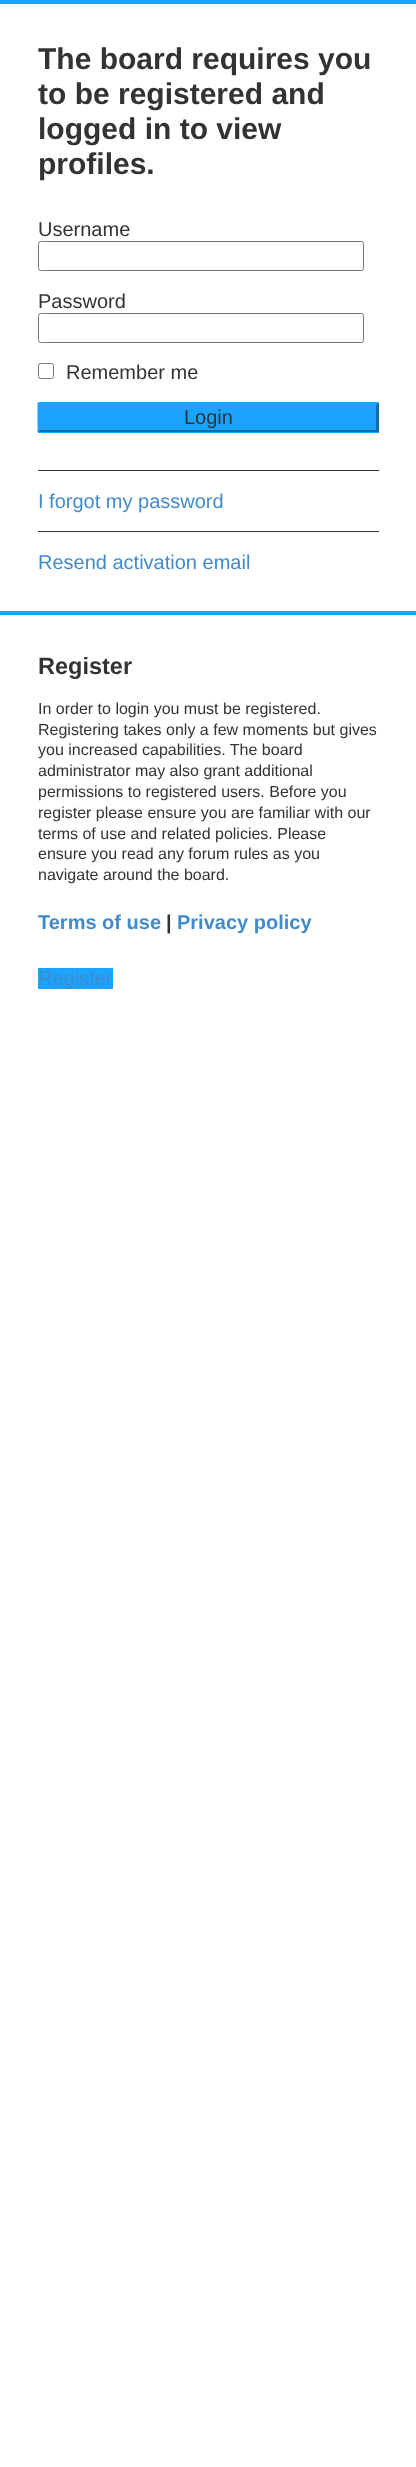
<svg xmlns="http://www.w3.org/2000/svg" xmlns:xlink="http://www.w3.org/1999/xlink" width="416" height="2467" viewBox="0 0 416 2467">
<style>
.cls-1{font:bold 30px Liberation Sans;fill:#333333}
.cls-2{font:20px Liberation Sans;fill:#333333}
.cls-3{font:20px Liberation Sans;fill:#428bca}
.cls-4{font:bold 23.5px Liberation Sans;fill:#333333}
.cls-5{font:16px Liberation Sans;fill:#333333}
.cls-6{font:bold 20px Liberation Sans;fill:#428bca}
.cls-7{font:bold 20px Liberation Sans;fill:#333333}
</style>
<rect width="100%" height="100%" fill="#ffffff"/>
<rect fill="#1aa3ff" x="0" y="0" width="416" height="4"/>
<rect fill="none" stroke="#767676" x="38.5" y="241.5" width="325" height="29" rx="2"/>
<rect fill="none" stroke="#767676" x="38.5" y="313.5" width="325" height="29" rx="2"/>
<rect fill="none" stroke="#767676" x="38.5" y="363.5" width="15" height="15" rx="2"/>
<rect fill="#1aa3ff" x="38" y="403" width="341" height="30"/>
<path fill="#1aa3ff" d="M38 402H379L376 405H40Z"/>
<path fill="#116daa" d="M379 402.5V432.5L376 430V405Z"/>
<path fill="#116daa" d="M379 432H38L40 430H376Z"/>
<path fill="#1aa3ff" d="M37.5 432.5V402.5L40 405V430Z"/>
<rect fill="#333333" x="38" y="470" width="341" height="1"/>
<rect fill="#333333" x="38" y="531" width="341" height="1"/>
<rect fill="#1aa3ff" x="0" y="611" width="416" height="4"/>
<rect fill="#1aa3ff" x="38" y="968" width="75" height="21"/>
<text class="cls-1"><tspan x="38" y="69">The board requires you</tspan><tspan x="38" y="104">to be registered and</tspan><tspan x="38" y="139">logged in to view</tspan><tspan x="38" y="174">profiles.</tspan></text>
<text class="cls-2" x="38" y="236">Username</text>
<text class="cls-2" x="38" y="308">Password</text>
<text class="cls-2" x="66" y="379">Remember me</text>
<text class="cls-2" x="184" y="424">Login</text>
<text class="cls-3" x="38" y="508">I forgot my password</text>
<text class="cls-3" x="38" y="569">Resend activation email</text>
<text class="cls-4" x="38" y="674">Register</text>
<text class="cls-5"><tspan x="38" y="714">In order to login you must be registered.</tspan><tspan x="38" y="735">Registering takes only a few moments but gives</tspan><tspan x="38" y="755">you increased capabilities. The board</tspan><tspan x="38" y="776">administrator may also grant additional</tspan><tspan x="38" y="797">permissions to registered users. Before you</tspan><tspan x="38" y="818">register please ensure you are familiar with our</tspan><tspan x="38" y="839">terms of use and related policies. Please</tspan><tspan x="38" y="859">ensure you read any forum rules as you</tspan><tspan x="38" y="880">navigate around the board.</tspan></text>
<text class="cls-6" x="38" y="929">Terms of use</text>
<text class="cls-7" x="166" y="929">|</text>
<text class="cls-6" x="177" y="929">Privacy policy</text>
<text class="cls-3" x="38" y="985">Register</text>
</svg>
